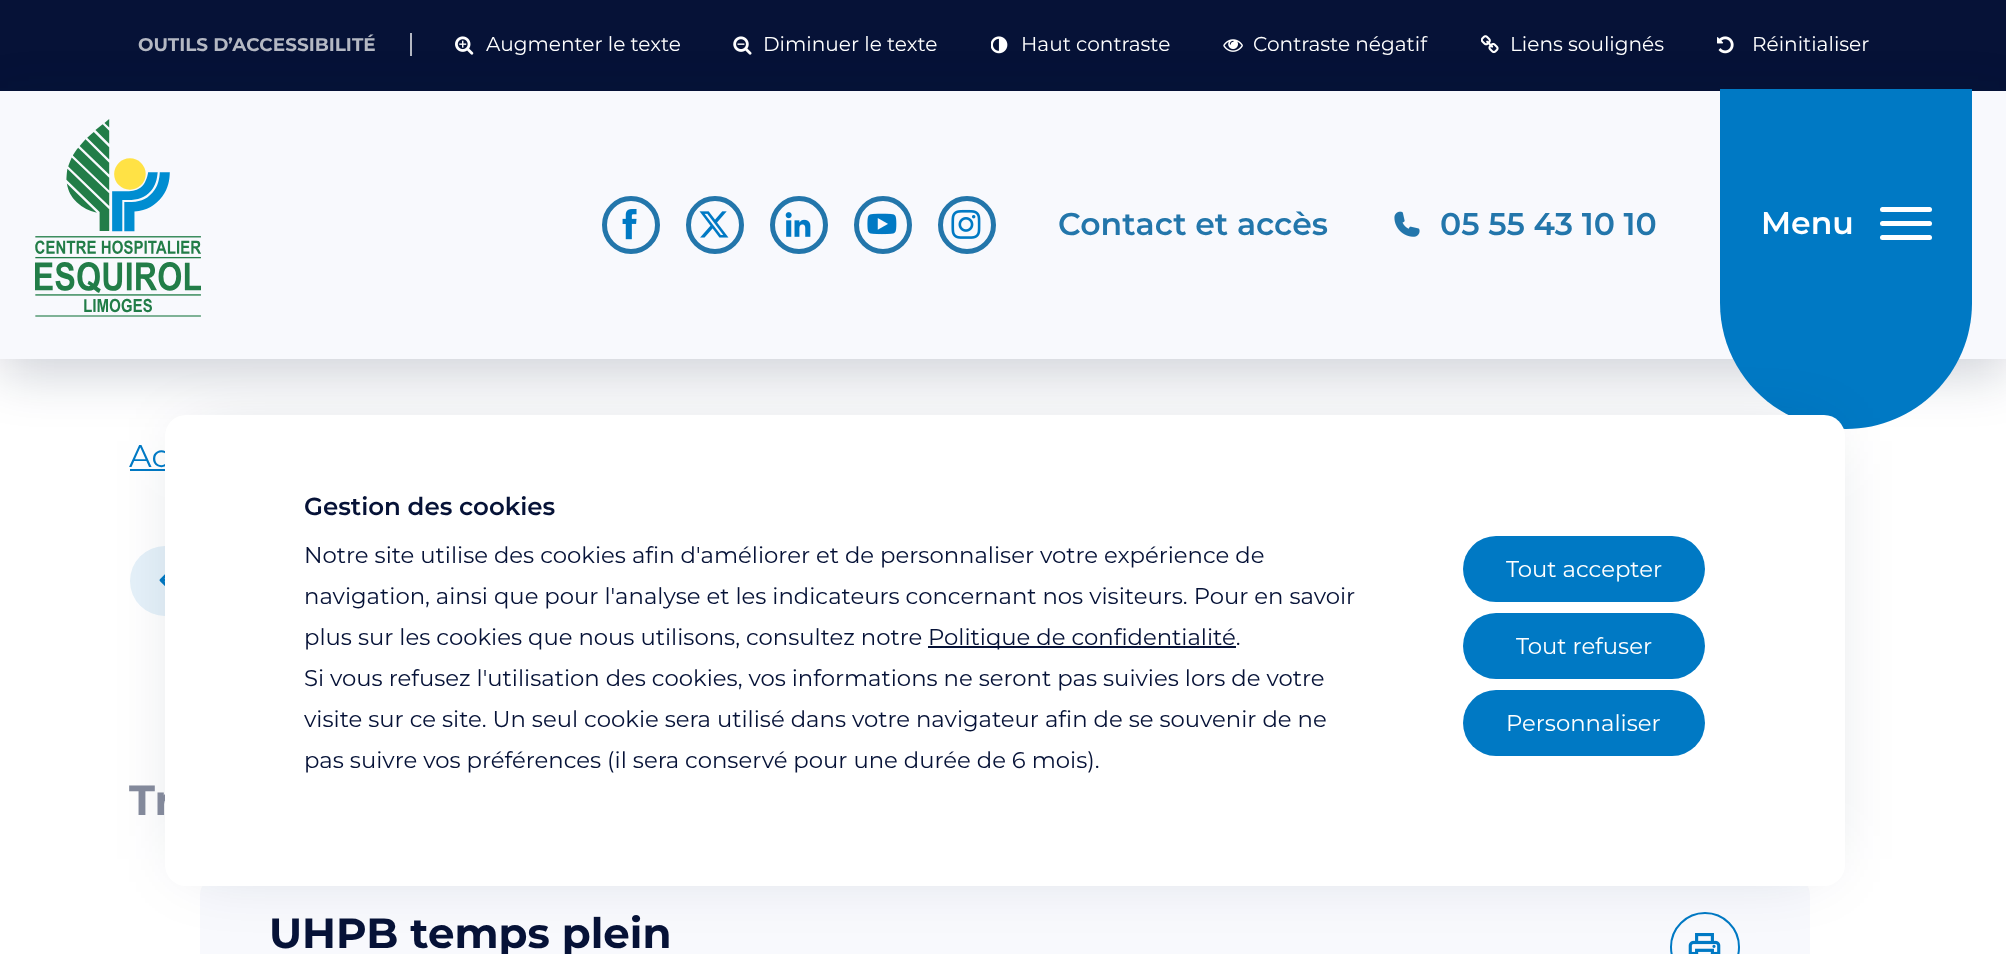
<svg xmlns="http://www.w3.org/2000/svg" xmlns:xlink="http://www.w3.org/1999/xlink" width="2006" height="954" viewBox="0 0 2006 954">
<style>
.cls-1{font:bold 18.4px Montserrat;fill:#b4b8c3}
.cls-2{font:20.1px Montserrat;fill:#ffffff}
.cls-3{font:600 31.5px Montserrat;fill:#2376ab}
.cls-4{font:600 31.5px Montserrat;fill:#ffffff}
.cls-5{font:31.5px Montserrat;fill:#0079c4}
.cls-6{font:bold 42px Montserrat;fill:#83899b}
.cls-7{font:bold 42px Montserrat;fill:#061237}
.cls-8{font:600 24.5px Montserrat;fill:#061237}
.cls-9{font:22.75px Montserrat;fill:#061237}
.cls-10{font:22.75px Montserrat;fill:#ffffff}
</style>
<rect width="100%" height="100%" fill="#ffffff"/>
<rect fill="#061237" x="0" y="0" width="2006" height="91"/>
<rect fill="#b4b8c3" x="410" y="33" width="2" height="23"/>
<image xlink:href="image0.png" x="455" y="36" width="19" height="19"/>
<image xlink:href="image1.png" x="733" y="36" width="19" height="19"/>
<image xlink:href="image2.png" x="991" y="36" width="17" height="18"/>
<image xlink:href="image3.png" x="1223" y="39" width="20" height="13"/>
<image xlink:href="image4.png" x="1481" y="35" width="18" height="19"/>
<image xlink:href="image5.png" x="1717" y="36" width="17" height="18"/>
<rect fill="#061237" fill-opacity="0.2" filter="blur(26px)" x="0" y="105" width="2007" height="268"/>
<rect fill="#f8f9fd" x="0" y="91" width="2006" height="268"/>
<image xlink:href="image6.png" x="35" y="119" width="166" height="198"/>
<circle fill="none" stroke="#2376ab" stroke-width="5" cx="631" cy="225" r="26.5"/>
<image xlink:href="image7.png" x="622" y="209" width="15" height="31"/>
<circle fill="none" stroke="#2376ab" stroke-width="5" cx="715" cy="225" r="26.5"/>
<image xlink:href="image8.png" x="699" y="211" width="30" height="27"/>
<circle fill="none" stroke="#2376ab" stroke-width="5" cx="799" cy="225" r="26.5"/>
<image xlink:href="image9.png" x="785" y="212" width="26" height="25"/>
<circle fill="none" stroke="#2376ab" stroke-width="5" cx="883" cy="225" r="26.5"/>
<image xlink:href="image10.png" x="867" y="213" width="30" height="22"/>
<circle fill="none" stroke="#2376ab" stroke-width="5" cx="967" cy="225" r="26.5"/>
<image xlink:href="image11.png" x="951" y="209" width="30" height="30"/>
<image xlink:href="image12.png" x="1394" y="211" width="26" height="26"/>
<path fill="#0079c4" d="M1720 89H1972V303C1972 372.5 1915.5 429 1846 429C1776.5 429 1720 372.5 1720 303Z"/>
<rect fill="#ffffff" x="1880" y="221" width="52" height="5" rx="2.5"/>
<rect fill="#ffffff" x="1880" y="207" width="52" height="5" rx="2.5"/>
<rect fill="#ffffff" x="1880" y="235" width="52" height="5" rx="2.5"/>
<rect fill="#0079c4" x="130" y="469" width="35" height="2"/>
<rect fill="#e5f1f9" x="130" y="546" width="197" height="70" rx="35"/>
<image xlink:href="image13.png" x="159" y="574" width="6" height="12"/>
<rect fill="#f8f9fd" x="200" y="877" width="1610" height="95" rx="18"/>
<circle fill="none" stroke="#0079c4" stroke-width="2" cx="1705" cy="947" r="34"/>
<image xlink:href="image14.png" x="1688" y="933" width="33" height="21"/>
<rect fill="#061237" fill-opacity="0.2" filter="blur(35px)" x="191" y="441" width="1627" height="418"/>
<text class="cls-1" x="138" y="51">OUTILS D’ACCESSIBILITÉ</text>
<text class="cls-2" x="486" y="51">Augmenter le texte</text>
<text class="cls-2" x="763" y="51">Diminuer le texte</text>
<text class="cls-2" x="1021" y="51">Haut contraste</text>
<text class="cls-2" x="1253" y="51">Contraste négatif</text>
<text class="cls-2" x="1510" y="51">Liens soulignés</text>
<text class="cls-2" x="1752" y="51">Réinitialiser</text>
<text class="cls-3" x="1058" y="235">Contact et accès</text>
<text class="cls-3" x="1440" y="235">05 55 43 10 10</text>
<text class="cls-4" x="1761" y="234">Menu</text>
<text class="cls-5" x="129" y="467">Ac</text>
<text class="cls-6" x="129" y="815">Tr</text>
<text class="cls-7" x="269" y="948">UHPB temps plein</text>
<rect fill="#ffffff" x="165" y="415" width="1680" height="471" rx="21"/>
<text class="cls-8" x="304" y="515">Gestion des cookies</text>
<text class="cls-9"><tspan x="304" y="563">Notre site utilise des cookies afin d'améliorer et de personnaliser votre expérience de</tspan><tspan x="304" y="604">navigation, ainsi que pour l'analyse et les indicateurs concernant nos visiteurs. Pour en savoir</tspan><tspan x="304" y="645">plus sur les cookies que nous utilisons, consultez notre</tspan></text>
<rect fill="#061237" x="928" y="646" width="308" height="2"/>
<text class="cls-9" x="928" y="645">Politique de confidentialité.</text>
<text class="cls-9"><tspan x="304" y="686">Si vous refusez l'utilisation des cookies, vos informations ne seront pas suivies lors de votre</tspan><tspan x="304" y="727">visite sur ce site. Un seul cookie sera utilisé dans votre navigateur afin de se souvenir de ne</tspan><tspan x="304" y="768">pas suivre vos préférences (il sera conservé pour une durée de 6 mois).</tspan></text>
<rect fill="#0079c4" x="1463" y="536" width="242" height="66" rx="33"/>
<text class="cls-10" x="1506" y="577">Tout accepter</text>
<rect fill="#0079c4" x="1463" y="613" width="242" height="66" rx="33"/>
<text class="cls-10" x="1516" y="654">Tout refuser</text>
<rect fill="#0079c4" x="1463" y="690" width="242" height="66" rx="33"/>
<text class="cls-10" x="1506" y="731">Personnaliser</text>
</svg>
